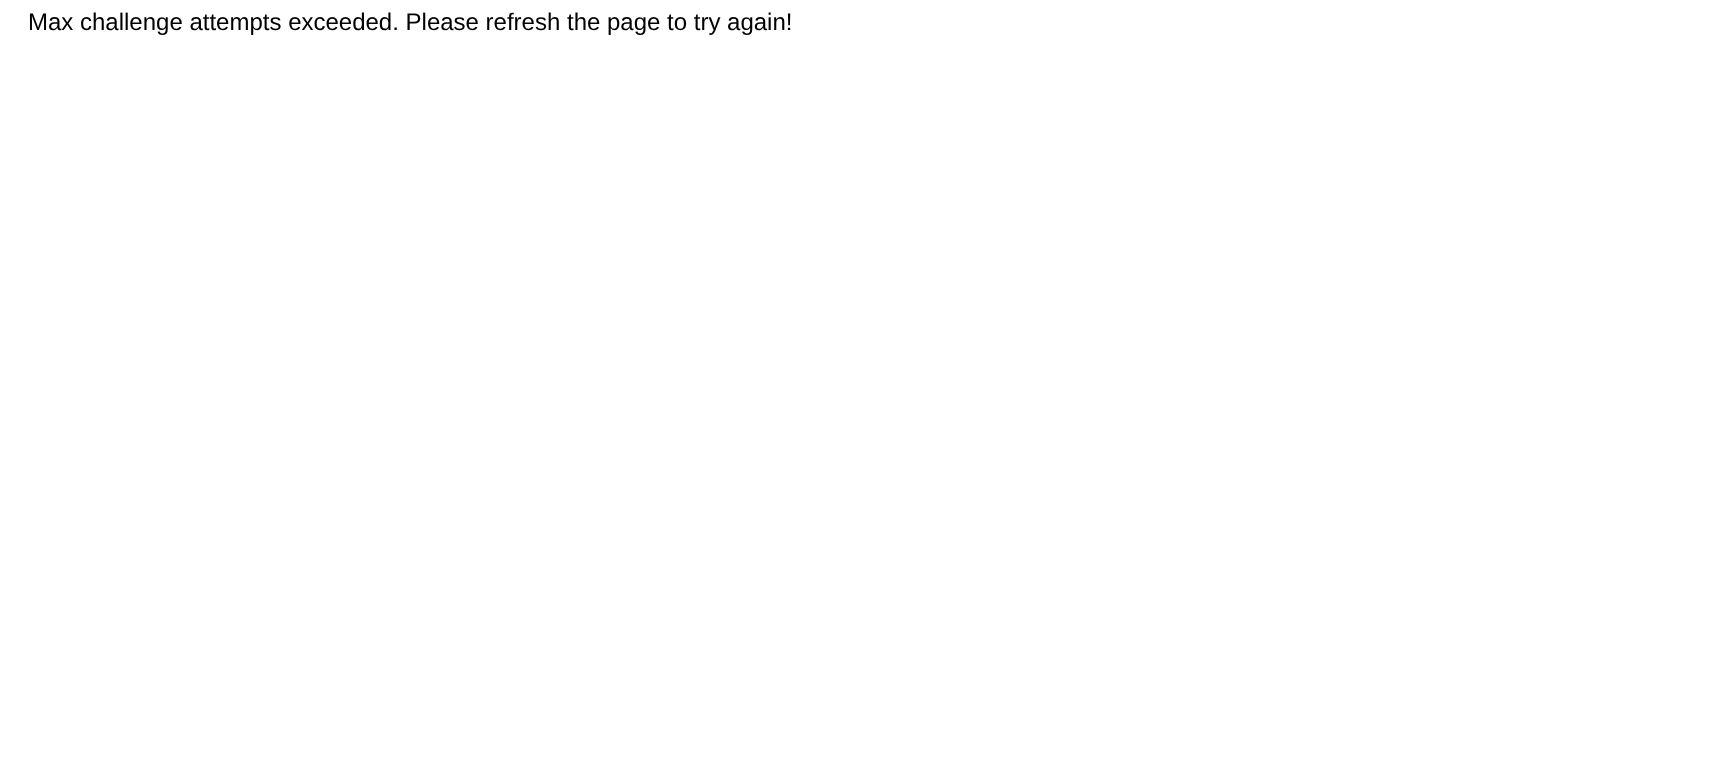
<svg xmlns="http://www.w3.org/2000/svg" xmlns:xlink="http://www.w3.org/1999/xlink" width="1724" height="784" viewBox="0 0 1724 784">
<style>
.cls-1{font:24px Liberation Sans;fill:#000000}
</style>
<rect width="100%" height="100%" fill="#ffffff"/>
<text class="cls-1" x="28" y="30">Max challenge attempts exceeded. Please refresh the page to try again!</text>
</svg>
